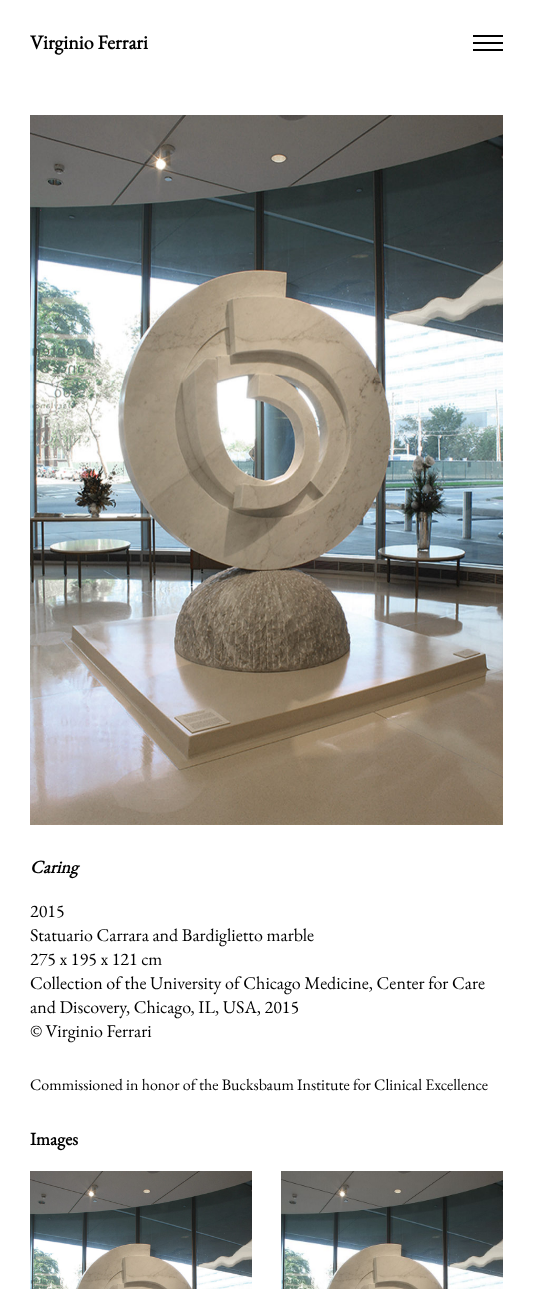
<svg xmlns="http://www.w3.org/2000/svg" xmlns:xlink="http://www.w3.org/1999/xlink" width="533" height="1289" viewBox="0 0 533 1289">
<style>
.cls-1{font:bold 20px EB Garamond;fill:#000000}
.cls-2{font:italic bold 18px EB Garamond;fill:#000000}
.cls-3{font:18px EB Garamond;fill:#000000}
.cls-4{font:16px EB Garamond;fill:#000000}
.cls-5{font:bold 18px EB Garamond;fill:#000000}
</style>
<rect width="100%" height="100%" fill="#ffffff"/>
<rect fill="#000000" x="473" y="35" width="30" height="2"/>
<rect fill="#000000" x="473" y="42" width="30" height="2"/>
<rect fill="#000000" x="473" y="49" width="30" height="2"/>
<image xlink:href="image0.png" x="30" y="115" width="473" height="710"/>
<image xlink:href="image1.png" x="30" y="1171" width="222" height="118"/>
<image xlink:href="image2.png" x="281" y="1171" width="222" height="118"/>
<text class="cls-1" x="30" y="49">Virginio Ferrari</text>
<text class="cls-2" x="30" y="873">Caring</text>
<text class="cls-3"><tspan x="30" y="917">2015</tspan><tspan x="30" y="941">Statuario Carrara and Bardiglietto marble</tspan><tspan x="30" y="965">275 x 195 x 121 cm</tspan><tspan x="30" y="989">Collection of the University of Chicago Medicine, Center for Care</tspan><tspan x="30" y="1013">and Discovery, Chicago, IL, USA, 2015</tspan><tspan x="30" y="1037">© Virginio Ferrari</tspan></text>
<text class="cls-4" x="30" y="1090">Commissioned in honor of the Bucksbaum Institute for Clinical Excellence</text>
<text class="cls-5" x="30" y="1145">Images</text>
</svg>
